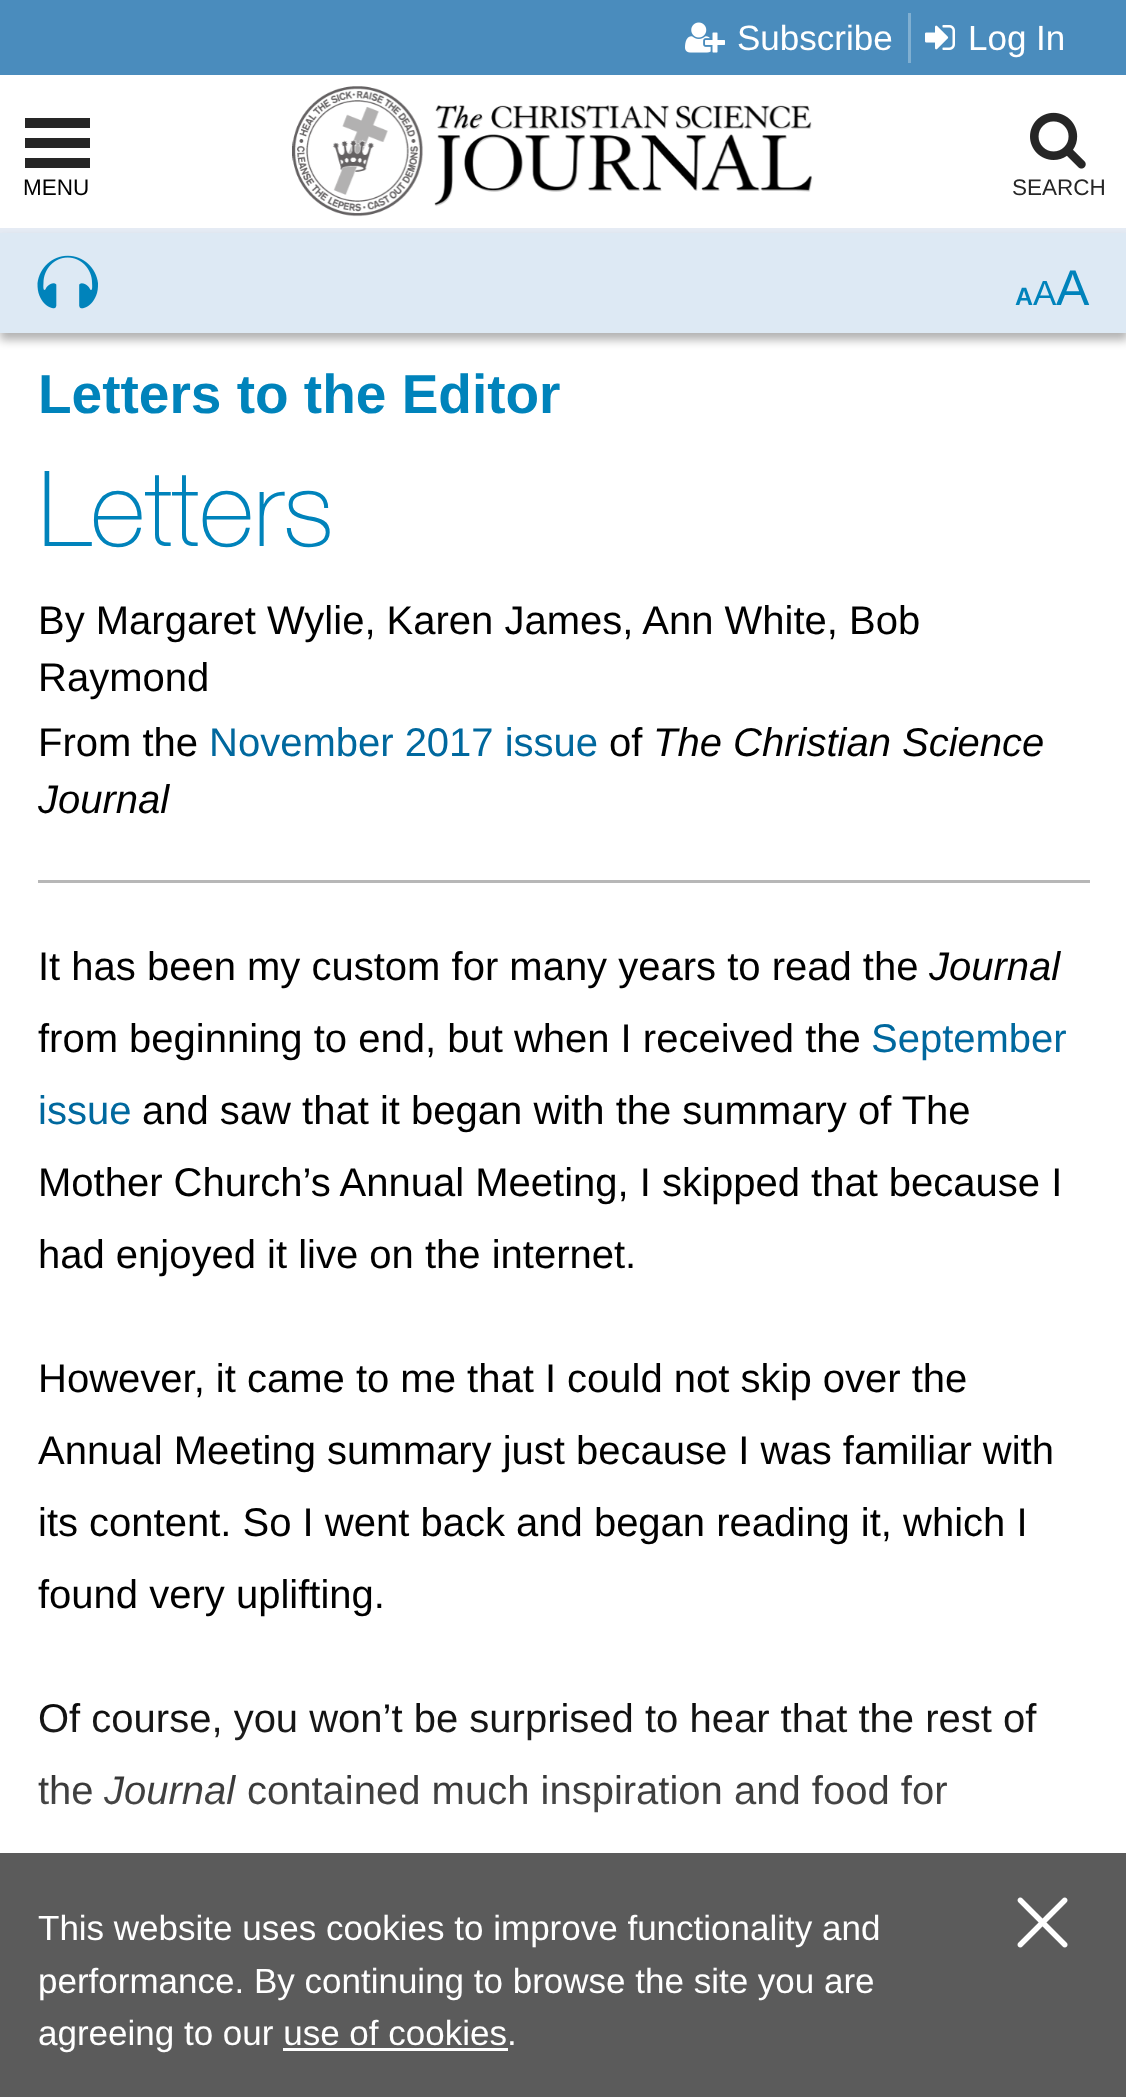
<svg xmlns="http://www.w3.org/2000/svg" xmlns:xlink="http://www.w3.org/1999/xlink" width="1126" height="2097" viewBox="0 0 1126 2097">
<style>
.cls-1{font:35px Liberation Sans;fill:#ffffff}
.cls-2{font:22.5px Liberation Sans;fill:#000000}
.cls-3{font:22.5px Liberation Sans;fill:#262626}
.cls-4{font:bold 25px Liberation Sans;fill:#0083bb}
.cls-5{font:35px Liberation Sans;fill:#0083bb}
.cls-6{font:50px Liberation Sans;fill:#0083bb}
.cls-7{font:bold 55px Liberation Sans;fill:#0083bb}
.cls-8{font:100 105px 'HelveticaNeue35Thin';fill:#0083bb}
.cls-9{font:40px Liberation Sans;fill:#000000}
.cls-10{font:40px Liberation Sans;fill:#00689e}
.cls-11{font:italic 40px Liberation Sans;fill:#000000}
</style>
<defs>
<linearGradient id="g1" gradientUnits="userSpaceOnUse" x1="564" y1="1685" x2="564" y2="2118"><stop offset="0" stop-color="#ffffff" stop-opacity="0"/><stop offset="1" stop-color="#ffffff"/></linearGradient>
</defs>
<rect width="100%" height="100%" fill="#ffffff"/>
<rect fill="#e5ebf4" x="0" y="228" width="1126" height="5"/>
<rect fill="#4a8cbd" x="0" y="0" width="1126" height="75"/>
<rect fill="#80afd1" x="908" y="13" width="3" height="50"/>
<image xlink:href="image0.png" x="685" y="22" width="40" height="31"/>
<image xlink:href="image1.png" x="925" y="25" width="30" height="25"/>
<rect fill="#262626" x="25" y="118" width="65" height="10"/>
<rect fill="#262626" x="25" y="138" width="65" height="10"/>
<rect fill="#262626" x="25" y="158" width="65" height="10"/>
<image xlink:href="image2.png" x="292" y="86" width="521" height="131"/>
<image xlink:href="image3.png" x="1030" y="112" width="56" height="57"/>
<rect fill="#000000" fill-opacity="0.3" filter="blur(5px)" x="0" y="240" width="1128" height="100"/>
<rect fill="#dde9f4" x="0" y="233" width="1126" height="100"/>
<image xlink:href="image4.png" x="37" y="255" width="61" height="54"/>
<rect fill="#b7b7b7" x="38" y="880" width="1052" height="3"/>
<rect fill="#494949" fill-opacity="0.9" x="0" y="1853" width="1126" height="244"/>
<rect fill="#ffffff" x="283" y="2048" width="225" height="3"/>
<image xlink:href="image5.png" x="1017" y="1897" width="51" height="51"/>
<text class="cls-1" x="737" y="50">Subscribe</text>
<text class="cls-1" x="968" y="50">Log In</text>
<text class="cls-2" x="23" y="195">MENU</text>
<text class="cls-3" x="1012" y="195">SEARCH</text>
<text class="cls-4" x="1015" y="305">A</text>
<text class="cls-5" x="1033" y="305">A</text>
<text class="cls-6" x="1056" y="305">A</text>
<text class="cls-7" x="38" y="413">Letters to the Editor</text>
<text class="cls-8" x="38" y="546">Letters</text>
<text class="cls-9"><tspan x="38" y="634">By Margaret Wylie, Karen James, Ann White, Bob</tspan><tspan x="38" y="691">Raymond</tspan><tspan x="38" y="756">From the</tspan></text>
<text class="cls-10" x="209" y="756">November 2017 issue</text>
<text class="cls-9" x="609" y="756">of</text>
<text class="cls-11" x="653" y="756">The Christian Science</text>
<text class="cls-11" x="38" y="813">Journal</text>
<text class="cls-9" x="38" y="980">It has been my custom for many years to read the</text>
<text class="cls-11" x="929" y="980">Journal</text>
<text class="cls-9" x="38" y="1052">from beginning to end, but when I received the</text>
<text class="cls-10" x="871" y="1052">September</text>
<text class="cls-10" x="38" y="1124">issue</text>
<text class="cls-9" x="142" y="1124">and saw that it began with the summary of The</text>
<text class="cls-9"><tspan x="38" y="1196">Mother Church’s Annual Meeting, I skipped that because I</tspan><tspan x="38" y="1268">had enjoyed it live on the internet.</tspan></text>
<text class="cls-9"><tspan x="38" y="1392">However, it came to me that I could not skip over the</tspan><tspan x="38" y="1464">Annual Meeting summary just because I was familiar with</tspan><tspan x="38" y="1536">its content. So I went back and began reading it, which I</tspan><tspan x="38" y="1608">found very uplifting.</tspan></text>
<text class="cls-9"><tspan x="38" y="1732">Of course, you won’t be surprised to hear that the rest of</tspan><tspan x="38" y="1804">the</tspan></text>
<text class="cls-11" x="104" y="1804">Journal</text>
<text class="cls-9" x="247" y="1804">contained much inspiration and food for</text>
<rect fill="url(#g1)" x="38" y="1703" width="998" height="110"/>
<text class="cls-1"><tspan x="38" y="1940">This website uses cookies to improve functionality and</tspan><tspan x="38" y="1993">performance. By continuing to browse the site you are</tspan><tspan x="38" y="2045">agreeing to our use of cookies.</tspan></text>
</svg>
